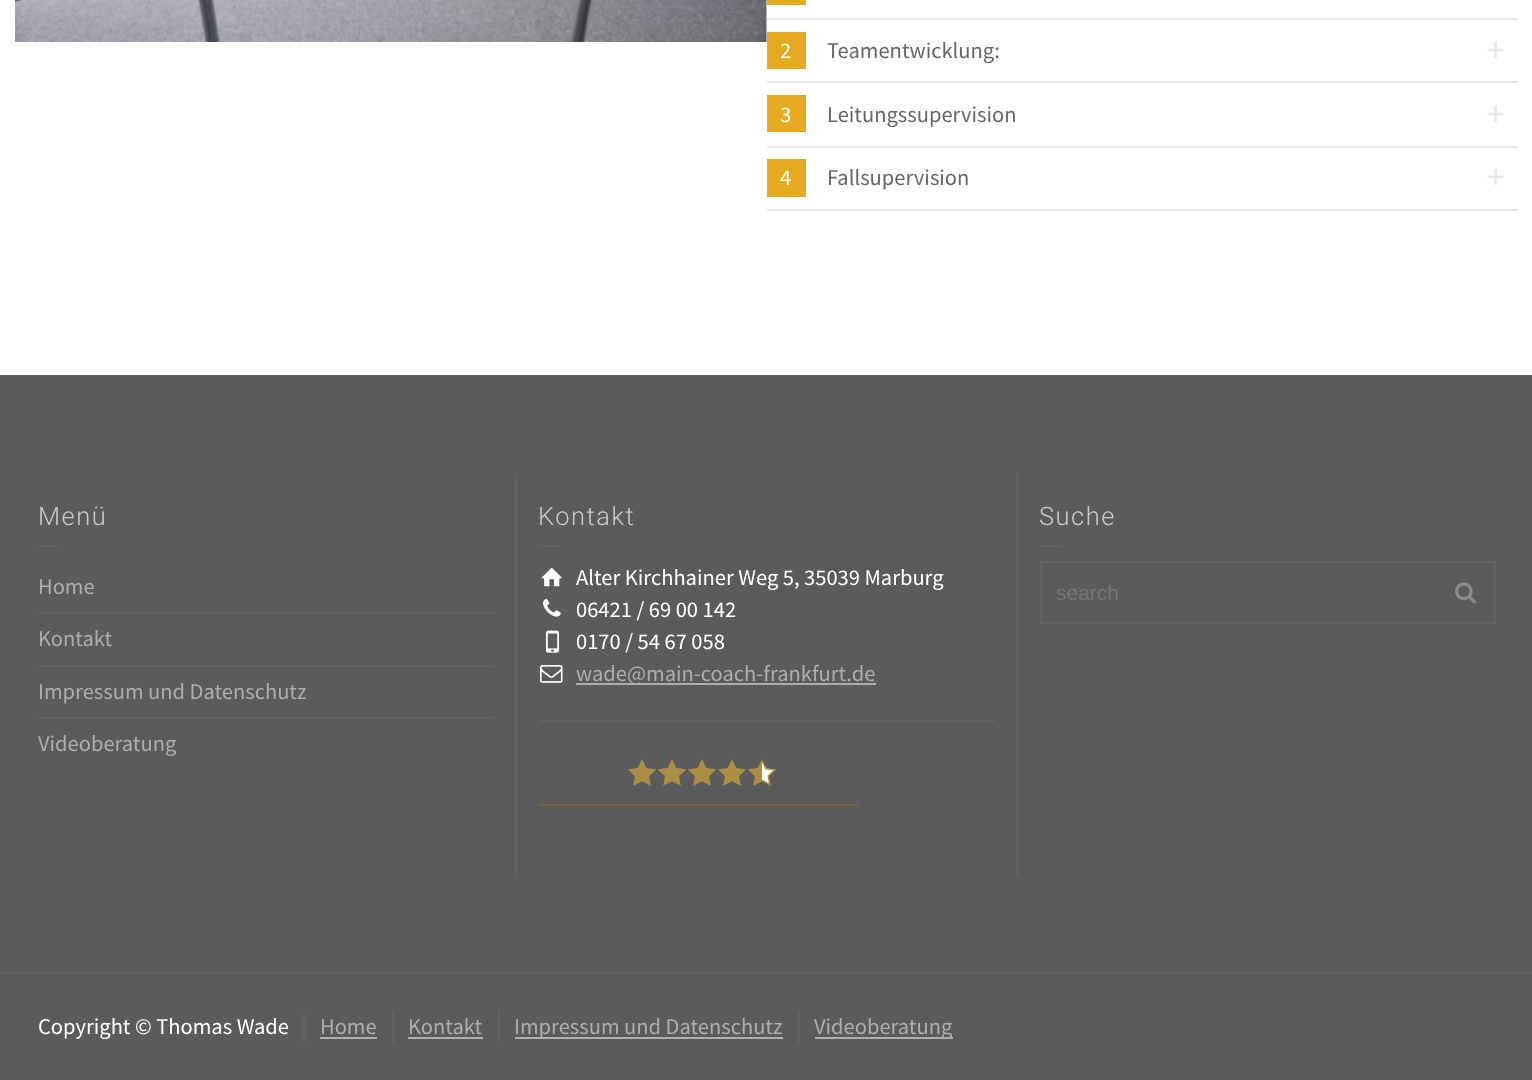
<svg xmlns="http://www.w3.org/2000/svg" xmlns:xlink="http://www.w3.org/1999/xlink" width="1532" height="1080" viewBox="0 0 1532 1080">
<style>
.cls-1{font:22.5px Source Sans Pro;fill:#ffffff}
.cls-2{font:22.5px Source Sans Pro;fill:#666666}
.cls-3{font:33px Liberation Sans;fill:#e8e8e8}
.cls-4{font:300 25.5px Roboto;letter-spacing:1.5px;fill:#cccccc}
.cls-5{font:22.5px Source Sans Pro;fill:#aeaeae}
.cls-6{font:21px Liberation Sans;fill:#757575}
</style>
<rect width="100%" height="100%" fill="#5b5b5b"/>
<rect fill="#ffffff" x="0" y="0" width="1532" height="375"/>
<image xlink:href="image0.png" x="15" y="0" width="752" height="42"/>
<rect fill="#e8e8e8" x="767" y="18" width="751" height="2"/>
<rect fill="#e6aa21" x="767" y="0" width="39" height="5"/>
<rect fill="#e8e8e8" x="767" y="81" width="751" height="2"/>
<rect fill="#e6aa21" x="767" y="32" width="39" height="37"/>
<rect fill="#e8e8e8" x="767" y="146" width="751" height="2"/>
<rect fill="#e6aa21" x="767" y="95" width="39" height="37"/>
<rect fill="#e8e8e8" x="767" y="209" width="751" height="2"/>
<rect fill="#e6aa21" x="767" y="159" width="39" height="38"/>
<rect fill="#626262" x="38" y="545" width="22" height="2"/>
<rect fill="#626262" x="38" y="612" width="456" height="2"/>
<rect fill="#626262" x="38" y="665" width="456" height="2"/>
<rect fill="#626262" x="38" y="717" width="456" height="2"/>
<rect fill="#626262" x="515" y="473" width="2" height="402"/>
<rect fill="#626262" x="539" y="545" width="22" height="2"/>
<image xlink:href="image1.png" x="541" y="568" width="21" height="19"/>
<image xlink:href="image2.png" x="543" y="599" width="18" height="18"/>
<image xlink:href="image3.png" x="546" y="630" width="14" height="23"/>
<image xlink:href="image4.png" x="540" y="665" width="23" height="18"/>
<rect fill="#aeaeae" x="576" y="683" width="300" height="2"/>
<rect fill="#626262" x="539" y="720" width="456" height="2"/>
<image xlink:href="image5.png" x="628" y="759" width="28" height="27"/>
<image xlink:href="image5.png" x="658" y="759" width="28" height="27"/>
<image xlink:href="image5.png" x="688" y="759" width="28" height="27"/>
<image xlink:href="image5.png" x="718" y="759" width="28" height="27"/>
<image xlink:href="image6.png" x="748" y="759" width="28" height="27"/>
<rect fill="#726542" x="539" y="804" width="319" height="2"/>
<rect fill="#626262" x="1016" y="473" width="2" height="402"/>
<rect fill="#626262" x="1040" y="545" width="22" height="2"/>
<rect fill="none" stroke="#626262" stroke-width="2" x="1041" y="562" width="454" height="61"/>
<image xlink:href="image7.png" x="1455" y="582" width="21" height="22"/>
<rect fill="#626262" x="0" y="972" width="1532" height="2"/>
<rect fill="#626262" x="303" y="1011" width="2" height="32"/>
<rect fill="#aeaeae" x="320" y="1037" width="57" height="2"/>
<rect fill="#626262" x="392" y="1011" width="2" height="32"/>
<rect fill="#aeaeae" x="408" y="1037" width="75" height="2"/>
<rect fill="#626262" x="498" y="1011" width="2" height="32"/>
<rect fill="#aeaeae" x="515" y="1037" width="268" height="2"/>
<rect fill="#626262" x="798" y="1011" width="2" height="32"/>
<rect fill="#aeaeae" x="815" y="1037" width="138" height="2"/>
<text class="cls-1" x="780" y="58">2</text>
<text class="cls-2" x="827" y="58">Teamentwicklung:</text>
<text class="cls-3" x="1486" y="61">+</text>
<text class="cls-1" x="780" y="122">3</text>
<text class="cls-2" x="827" y="122">Leitungssupervision</text>
<text class="cls-3" x="1486" y="125">+</text>
<text class="cls-1" x="780" y="185">4</text>
<text class="cls-2" x="827" y="185">Fallsupervision</text>
<text class="cls-3" x="1486" y="188">+</text>
<text class="cls-4" x="38" y="525">Menü</text>
<text class="cls-5" x="38" y="594">Home</text>
<text class="cls-5" x="38" y="646">Kontakt</text>
<text class="cls-5" x="38" y="699">Impressum und Datenschutz</text>
<text class="cls-5" x="38" y="751">Videoberatung</text>
<text class="cls-4" x="538" y="525">Kontakt</text>
<text class="cls-1"><tspan x="576" y="585">Alter Kirchhainer Weg 5, 35039 Marburg</tspan><tspan x="576" y="617">06421 / 69 00 142</tspan><tspan x="576" y="649">0170 / 54 67 058</tspan></text>
<text class="cls-5" x="576" y="681">wade@main-coach-frankfurt.de</text>
<text class="cls-4" x="1039" y="525">Suche</text>
<text class="cls-6" x="1056" y="600">search</text>
<text class="cls-1" x="38" y="1034">Copyright © Thomas Wade</text>
<text class="cls-5" x="320" y="1034">Home</text>
<text class="cls-5" x="408" y="1034">Kontakt</text>
<text class="cls-5" x="514" y="1034">Impressum und Datenschutz</text>
<text class="cls-5" x="814" y="1034">Videoberatung</text>
</svg>
